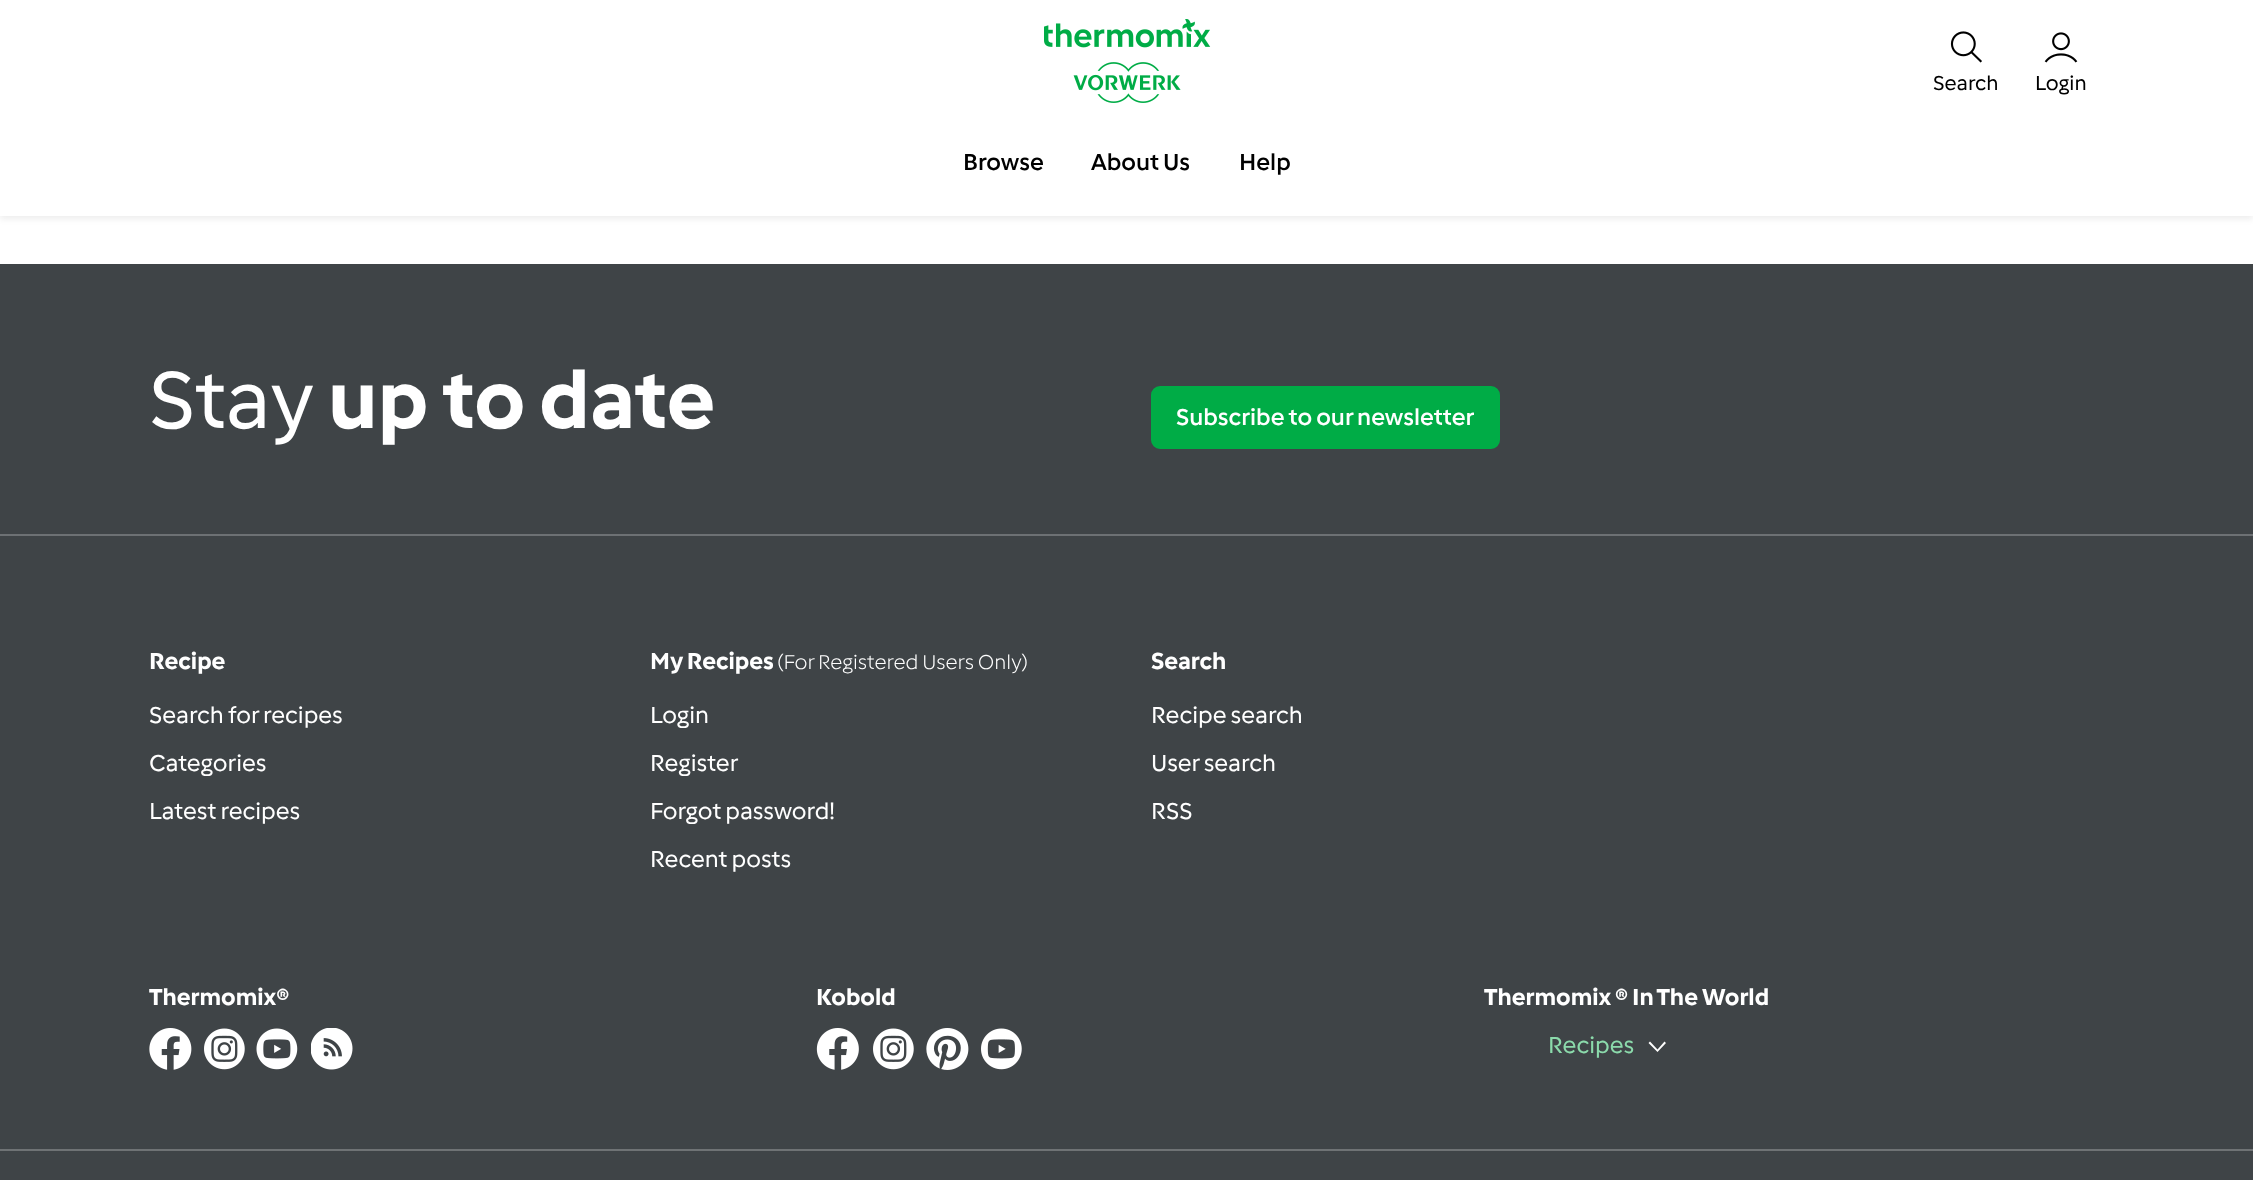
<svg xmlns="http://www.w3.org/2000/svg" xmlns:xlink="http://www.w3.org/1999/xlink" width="2253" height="1180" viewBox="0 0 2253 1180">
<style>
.cls-1{font:21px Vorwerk;fill:#000000}
.cls-2{font:500 24px Vorwerk;fill:#000000}
.cls-3{font:84px Vorwerk;fill:#ffffff}
.cls-4{font:bold 84px Vorwerk;fill:#ffffff}
.cls-5{font:500 24px Vorwerk;fill:#ffffff}
.cls-6{font:bold 24px Vorwerk;fill:#ffffff}
.cls-7{font:24px Vorwerk;fill:#ffffff}
.cls-8{font:300 21px Vorwerk;fill:#ffffff}
.cls-9{font:24px Vorwerk;fill:#8bdaab}
</style>
<rect width="100%" height="100%" fill="#ffffff"/>
<rect fill="#000000" fill-opacity="0.07" filter="blur(3px)" x="0" y="3" width="2253" height="216"/>
<rect fill="#ffffff" x="0" y="0" width="2253" height="216"/>
<image xlink:href="image0.png" x="1044" y="19" width="167" height="84"/>
<image xlink:href="image1.png" x="1950" y="31" width="32" height="32"/>
<image xlink:href="image2.png" x="2044" y="32" width="34" height="31"/>
<rect fill="#3f4447" x="0" y="264" width="2253" height="916"/>
<rect fill="#00ac46" stroke="#00ac46" stroke-width="2" x="1152" y="387" width="347" height="61" rx="8"/>
<rect fill="#6d7174" x="0" y="534" width="2253" height="2"/>
<image xlink:href="image3.png" x="149" y="1028" width="43" height="42"/>
<image xlink:href="image4.png" x="204" y="1028" width="41" height="42"/>
<image xlink:href="image5.png" x="256" y="1028" width="42" height="42"/>
<image xlink:href="image6.png" x="311" y="1028" width="42" height="42"/>
<image xlink:href="image7.png" x="816" y="1028" width="43" height="42"/>
<image xlink:href="image4.png" x="873" y="1028" width="41" height="42"/>
<image xlink:href="image8.png" x="926" y="1028" width="43" height="42"/>
<image xlink:href="image9.png" x="981" y="1028" width="41" height="42"/>
<path fill="#ffffff" d="M1657.5 1049.5L1650 1041.5L1648.5 1043L1657.5 1052L1666 1043L1664.5 1041.5Z"/>
<rect fill="#6f7375" x="0" y="1149" width="2253" height="2"/>
<text class="cls-1" x="1933" y="90">Search</text>
<text class="cls-1" x="2035" y="90">Login</text>
<text class="cls-2" x="963" y="170">Browse</text>
<text class="cls-2" x="1091" y="170">About Us</text>
<text class="cls-2" x="1239" y="170">Help</text>
<text class="cls-3" x="149" y="428">Stay</text>
<text class="cls-4" x="328" y="428">up to date</text>
<text class="cls-5" x="1176" y="425">Subscribe to our newsletter</text>
<text class="cls-6" x="149" y="669">Recipe</text>
<text class="cls-7" x="149" y="723">Search for recipes</text>
<text class="cls-7" x="149" y="771">Categories</text>
<text class="cls-7" x="149" y="819">Latest recipes</text>
<text class="cls-6" x="650" y="669">My Recipes</text>
<text class="cls-8" x="777" y="669">(For Registered Users Only)</text>
<text class="cls-7" x="650" y="723">Login</text>
<text class="cls-7" x="650" y="771">Register</text>
<text class="cls-7" x="650" y="819">Forgot password!</text>
<text class="cls-7" x="650" y="867">Recent posts</text>
<text class="cls-6" x="1151" y="669">Search</text>
<text class="cls-7" x="1151" y="723">Recipe search</text>
<text class="cls-7" x="1151" y="771">User search</text>
<text class="cls-7" x="1151" y="819">RSS</text>
<text class="cls-6" x="149" y="1005">Thermomix®</text>
<text class="cls-6" x="816" y="1005">Kobold</text>
<text class="cls-6" x="1484" y="1005">Thermomix ® In The World</text>
<text class="cls-9" x="1548" y="1053">Recipes</text>
</svg>
